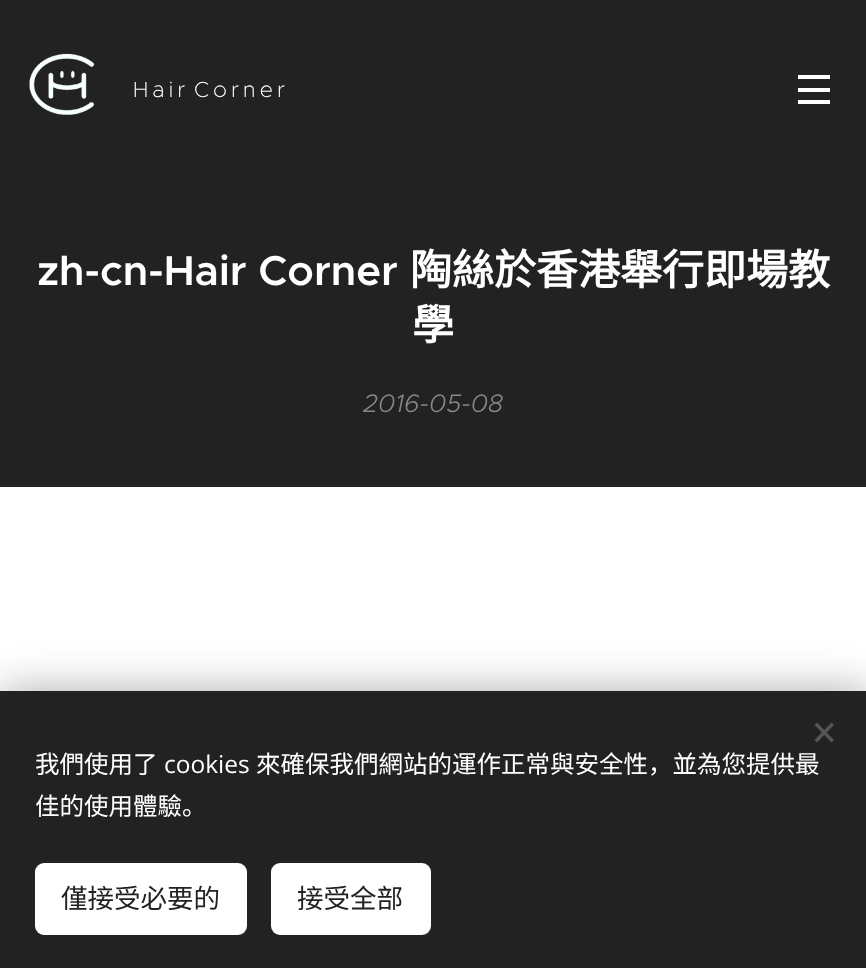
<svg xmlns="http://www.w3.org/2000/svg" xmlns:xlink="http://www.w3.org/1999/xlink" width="866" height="968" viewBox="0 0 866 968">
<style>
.cls-1{font:200 22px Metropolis;letter-spacing:-0.5px;fill:#ffffff}
.cls-2{font:600 42px Metropolis;fill:#ffffff}
.cls-3{font:bold 42px Noto Sans CJK SC;fill:#ffffff}
.cls-4{font:italic 300 25.5px Metropolis;fill:#888888}
.cls-5{font:24.5px Noto Sans CJK SC;fill:#ffffff}
.cls-6{font:24.5px Open Sans;fill:#ffffff}
.cls-7{font:26.5px Noto Sans CJK SC;fill:#222222}
</style>
<rect width="100%" height="100%" fill="#ffffff"/>
<rect fill="#222222" x="0" y="0" width="866" height="487"/>
<image xlink:href="image0.png" x="29" y="53" width="66" height="62"/>
<rect fill="#ffffff" x="798" y="88" width="32" height="4"/>
<rect fill="#ffffff" x="798" y="75" width="32" height="4"/>
<rect fill="#ffffff" x="798" y="100" width="32" height="4"/>
<rect fill="#000000" fill-opacity="0.33" filter="blur(22px)" x="0" y="691" width="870" height="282"/>
<rect fill="#222222" x="0" y="691" width="866" height="277"/>
<path fill="#555555" d="M814.5 740L831.5 722.5L834 725L817 742.5Z"/>
<path fill="#555555" d="M817 722.5L834 740L831.5 742.5L814.5 725Z"/>
<rect fill="#ffffff" x="35" y="863" width="212" height="72" rx="9"/>
<rect fill="#ffffff" x="271" y="863" width="160" height="72" rx="9"/>
<text class="cls-1" xml:space="preserve" x="133" y="97" word-spacing="-1.25">H a i r  C o r n e r</text>
<text class="cls-2" x="37" y="285">zh-cn-Hair Corner</text>
<text class="cls-3" x="410" y="285">陶絲於香港舉行即場教</text>
<text class="cls-3" x="412" y="340">學</text>
<text class="cls-4" x="363" y="412">2016-05-08</text>
<text class="cls-5" x="35" y="773">我們使用了</text>
<text class="cls-6" x="164" y="773">cookies</text>
<text class="cls-5" x="256" y="773">來確保我們網站的運作正常與安全性，並為您提供最</text>
<text class="cls-5" x="35" y="815">佳的使用體驗。</text>
<text class="cls-7" x="61" y="908">僅接受必要的</text>
<text class="cls-7" x="297" y="908">接受全部</text>
</svg>
